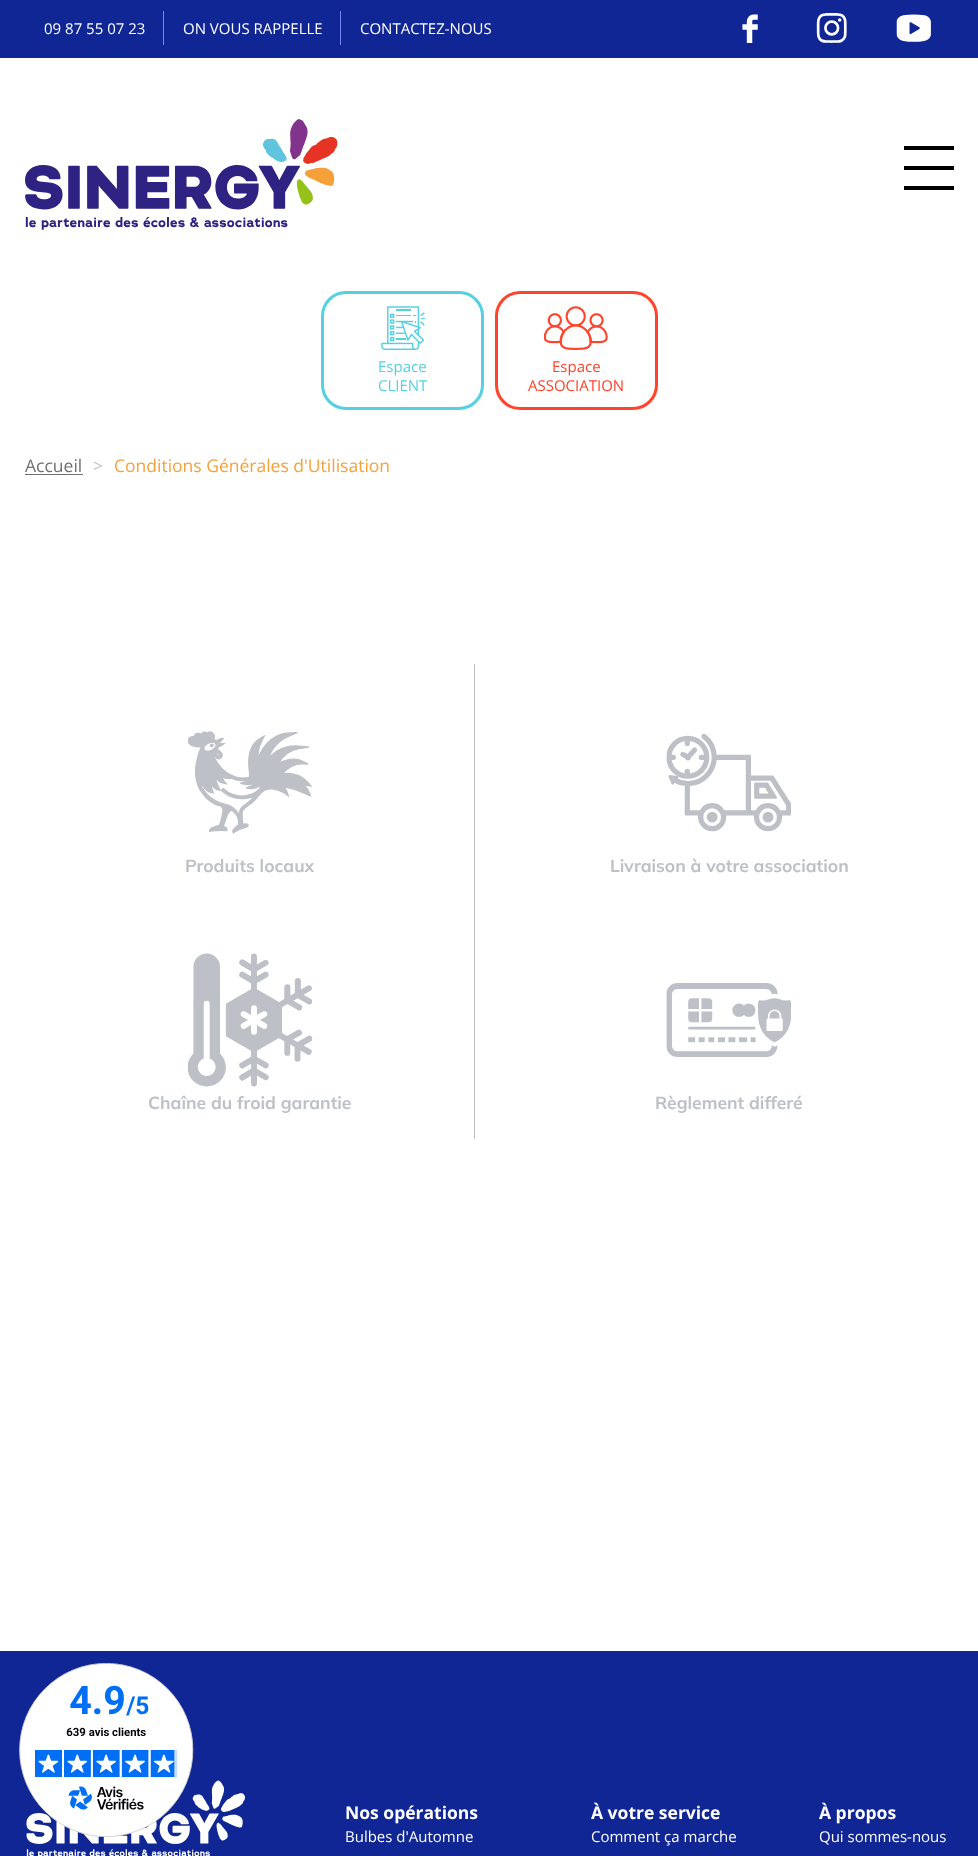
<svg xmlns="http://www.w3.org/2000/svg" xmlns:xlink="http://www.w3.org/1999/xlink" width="978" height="1856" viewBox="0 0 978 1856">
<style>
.cls-1{font:15px Open Sans;fill:#ffffff}
.cls-2{font:15px Open Sans;fill:#55d0e1}
.cls-3{font:15px Open Sans;fill:#ff442b}
.cls-4{font:17.5px Open Sans;fill:#707070}
.cls-5{font:17.5px Open Sans;fill:#bdc0c6}
.cls-6{font:17.5px Open Sans;fill:#f6a13a}
.cls-7{font:200 17.5px Mulish;fill:#bdc0c6}
.cls-8{font:bold 17.5px Open Sans;fill:#ffffff}
</style>
<rect width="100%" height="100%" fill="#ffffff"/>
<rect fill="#102694" x="0" y="0" width="978" height="58"/>
<rect fill="#7b85f9" x="163" y="11" width="1" height="34"/>
<rect fill="#7b85f9" x="340" y="11" width="1" height="34"/>
<image xlink:href="image0.png" x="742" y="14" width="16" height="29"/>
<image xlink:href="image1.png" x="816" y="13" width="31" height="30"/>
<image xlink:href="image2.png" x="896" y="14" width="35" height="28"/>
<image xlink:href="image3.png" x="25" y="119" width="313" height="111"/>
<rect fill="#000000" x="904" y="146" width="50" height="4"/>
<rect fill="#000000" x="904" y="166" width="50" height="4"/>
<rect fill="#000000" x="904" y="186" width="50" height="4"/>
<rect fill="none" stroke="#55d0e1" stroke-width="3" x="322.5" y="292.5" width="160" height="116" rx="23.5"/>
<image xlink:href="image4.png" x="381" y="306" width="44" height="44"/>
<rect fill="none" stroke="#ff442b" stroke-width="3" x="496.5" y="292.5" width="160" height="116" rx="23.5"/>
<image xlink:href="image5.png" x="544" y="306" width="64" height="44"/>
<rect fill="#707070" x="25" y="474" width="58" height="1"/>
<rect fill="#bdc0c6" x="474" y="664" width="1" height="475"/>
<image xlink:href="image6.png" x="187" y="731" width="125" height="103"/>
<image xlink:href="image7.png" x="666" y="733" width="125" height="99"/>
<image xlink:href="image8.png" x="187" y="953" width="126" height="134"/>
<image xlink:href="image9.png" x="666" y="983" width="125" height="74"/>
<rect fill="#102694" x="0" y="1651" width="978" height="205"/>
<image xlink:href="image10.png" x="26" y="1780" width="219" height="76"/>
<image xlink:href="image11.png" x="19" y="1663" width="175" height="174"/>
<text class="cls-1" x="44" y="34">09 87 55 07 23</text>
<text class="cls-1" x="183" y="34">ON VOUS RAPPELLE</text>
<text class="cls-1" x="360" y="34">CONTACTEZ-NOUS</text>
<text class="cls-2"><tspan x="378" y="372">Espace</tspan><tspan x="378" y="391">CLIENT</tspan></text>
<text class="cls-3" x="552" y="372">Espace</text>
<text class="cls-3" x="528" y="391">ASSOCIATION</text>
<text class="cls-4" x="25" y="472">Accueil</text>
<text class="cls-5" x="93" y="472">&gt;</text>
<text class="cls-6" x="114" y="472">Conditions Générales d'Utilisation</text>
<text class="cls-7" x="185" y="872">Produits locaux</text>
<text class="cls-7" x="610" y="872">Livraison à votre association</text>
<text class="cls-7" x="148" y="1109">Chaîne du froid garantie</text>
<text class="cls-7" x="655" y="1109">Règlement differé</text>
<text class="cls-8" x="345" y="1819">Nos opérations</text>
<text class="cls-1" x="345" y="1842">Bulbes d'Automne</text>
<text class="cls-8" x="591" y="1819">À votre service</text>
<text class="cls-1" x="591" y="1842">Comment ça marche</text>
<text class="cls-8" x="819" y="1819">À propos</text>
<text class="cls-1" x="819" y="1842">Qui sommes-nous</text>
</svg>
